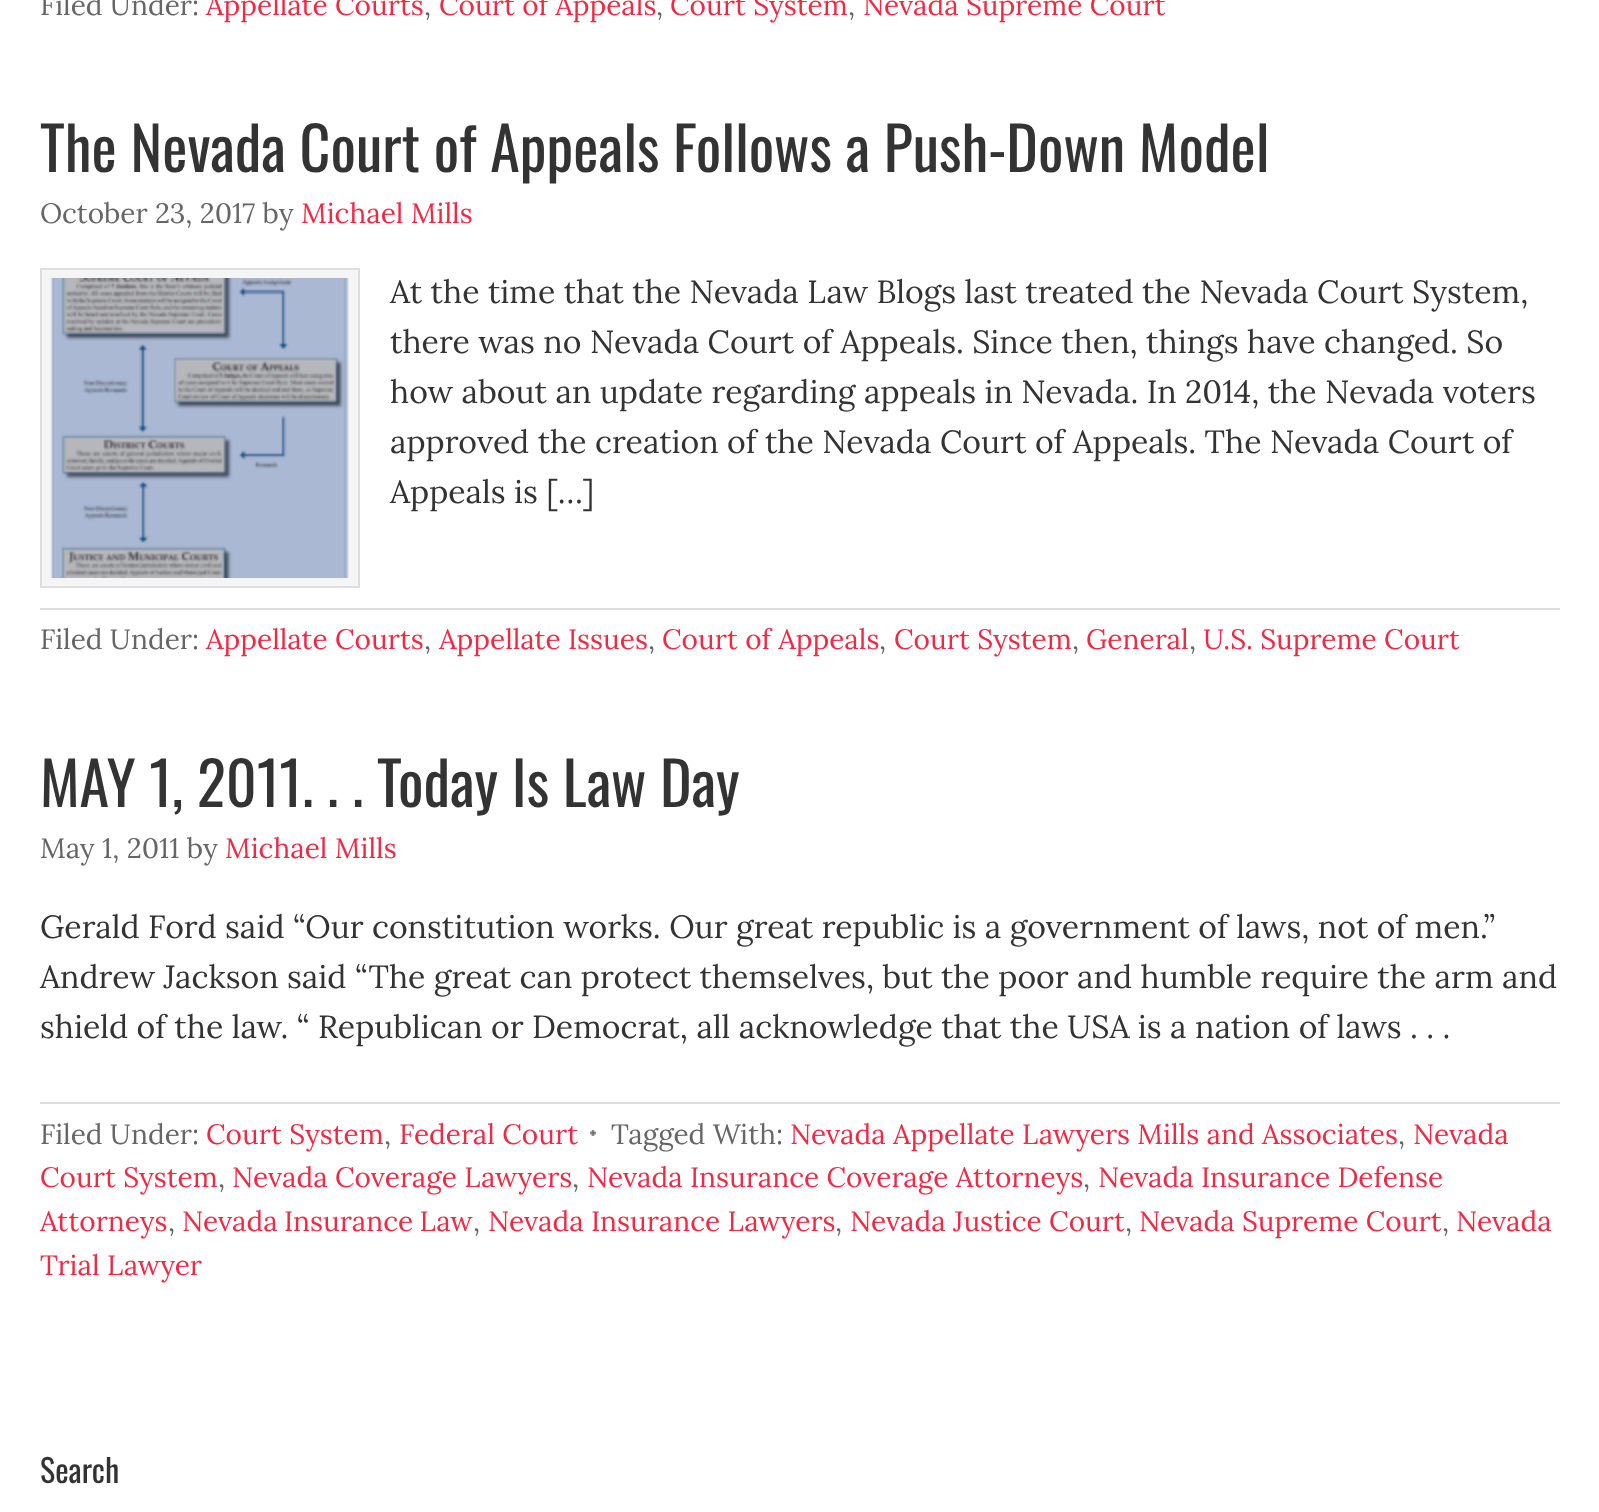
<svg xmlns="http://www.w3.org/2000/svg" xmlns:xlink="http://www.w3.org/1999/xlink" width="1599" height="1512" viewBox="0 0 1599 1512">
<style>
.cls-1{font:28px Lora;fill:#666666}
.cls-2{font:28px Lora;fill:#ed2b46}
.cls-3{font:60px Oswald;fill:#333333}
.cls-4{font:32px Lora;fill:#333333}
.cls-5{font:32px Oswald;fill:#333333}
</style>
<rect width="100%" height="100%" fill="#ffffff"/>
<rect fill="#f5f5f5" stroke="#dddddd" stroke-width="2" x="41" y="269" width="318" height="318"/>
<image xlink:href="image0.png" x="50" y="278" width="299" height="300"/>
<rect fill="#dddddd" x="40" y="608" width="1520" height="2"/>
<rect fill="#dddddd" x="40" y="1102" width="1520" height="2"/>
<image xlink:href="image1.png" x="590" y="1130" width="6" height="6"/>
<text class="cls-1" x="40" y="15">Filed Under:</text>
<text class="cls-2" x="206" y="15">Appellate Courts</text>
<text class="cls-1" x="424" y="15">,</text>
<text class="cls-2" x="439" y="15">Court of Appeals</text>
<text class="cls-1" x="656" y="15">,</text>
<text class="cls-2" x="670" y="15">Court System</text>
<text class="cls-1" x="848" y="15">,</text>
<text class="cls-2" x="863" y="15">Nevada Supreme Court</text>
<text class="cls-3" x="40" y="172">The Nevada Court of Appeals Follows a Push-Down Model</text>
<text class="cls-1" x="40" y="223">October 23, 2017 by</text>
<text class="cls-2" x="301" y="223">Michael Mills</text>
<text class="cls-4"><tspan x="390" y="303">At the time that the Nevada Law Blogs last treated the Nevada Court System,</tspan><tspan x="390" y="353">there was no Nevada Court of Appeals. Since then, things have changed. So</tspan><tspan x="390" y="403">how about an update regarding appeals in Nevada. In 2014, the Nevada voters</tspan><tspan x="390" y="453">approved the creation of the Nevada Court of Appeals. The Nevada Court of</tspan><tspan x="390" y="503">Appeals is […]</tspan></text>
<text class="cls-1" x="40" y="649">Filed Under:</text>
<text class="cls-2" x="206" y="649">Appellate Courts</text>
<text class="cls-1" x="424" y="649">,</text>
<text class="cls-2" x="439" y="649">Appellate Issues</text>
<text class="cls-1" x="648" y="649">,</text>
<text class="cls-2" x="662" y="649">Court of Appeals</text>
<text class="cls-1" x="879" y="649">,</text>
<text class="cls-2" x="894" y="649">Court System</text>
<text class="cls-1" x="1072" y="649">,</text>
<text class="cls-2" x="1086" y="649">General</text>
<text class="cls-1" x="1189" y="649">,</text>
<text class="cls-2" x="1203" y="649">U.S. Supreme Court</text>
<text class="cls-3" x="40" y="807">MAY 1, 2011. . . Today Is Law Day</text>
<text class="cls-1" x="40" y="858">May 1, 2011 by</text>
<text class="cls-2" x="225" y="858">Michael Mills</text>
<text class="cls-4"><tspan x="40" y="938">Gerald Ford said “Our constitution works. Our great republic is a government of laws, not of men.”</tspan><tspan x="40" y="988">Andrew Jackson said “The great can protect themselves, but the poor and humble require the arm and</tspan><tspan x="40" y="1038">shield of the law. “ Republican or Democrat, all acknowledge that the USA is a nation of laws . . .</tspan></text>
<text class="cls-1" x="40" y="1144">Filed Under:</text>
<text class="cls-2" x="206" y="1144">Court System</text>
<text class="cls-2" x="399" y="1144">Federal Court</text>
<text class="cls-1" x="611" y="1144">Tagged With:</text>
<text class="cls-2" x="790" y="1144">Nevada Appellate Lawyers Mills and Associates</text>
<text class="cls-2" x="1413" y="1144">Nevada</text>
<text class="cls-1" x="384" y="1144">,</text>
<text class="cls-1" x="1398" y="1144">,</text>
<text class="cls-2" x="40" y="1187">Court System</text>
<text class="cls-1" x="218" y="1187">,</text>
<text class="cls-2" x="232" y="1187">Nevada Coverage Lawyers</text>
<text class="cls-1" x="572" y="1187">,</text>
<text class="cls-2" x="587" y="1187">Nevada Insurance Coverage Attorneys</text>
<text class="cls-1" x="1083" y="1187">,</text>
<text class="cls-2" x="1098" y="1187">Nevada Insurance Defense</text>
<text class="cls-2" x="40" y="1231">Attorneys</text>
<text class="cls-1" x="168" y="1231">,</text>
<text class="cls-2" x="182" y="1231" word-spacing="-1">Nevada Insurance Law</text>
<text class="cls-1" x="473" y="1231">,</text>
<text class="cls-2" x="488" y="1231">Nevada Insurance Lawyers</text>
<text class="cls-1" x="835" y="1231">,</text>
<text class="cls-2" x="850" y="1231">Nevada Justice Court</text>
<text class="cls-1" x="1125" y="1231">,</text>
<text class="cls-2" x="1139" y="1231">Nevada Supreme Court</text>
<text class="cls-1" x="1442" y="1231">,</text>
<text class="cls-2" x="1456" y="1231">Nevada</text>
<text class="cls-2" x="40" y="1275">Trial Lawyer</text>
<text class="cls-5" x="40" y="1483">Search</text>
</svg>
